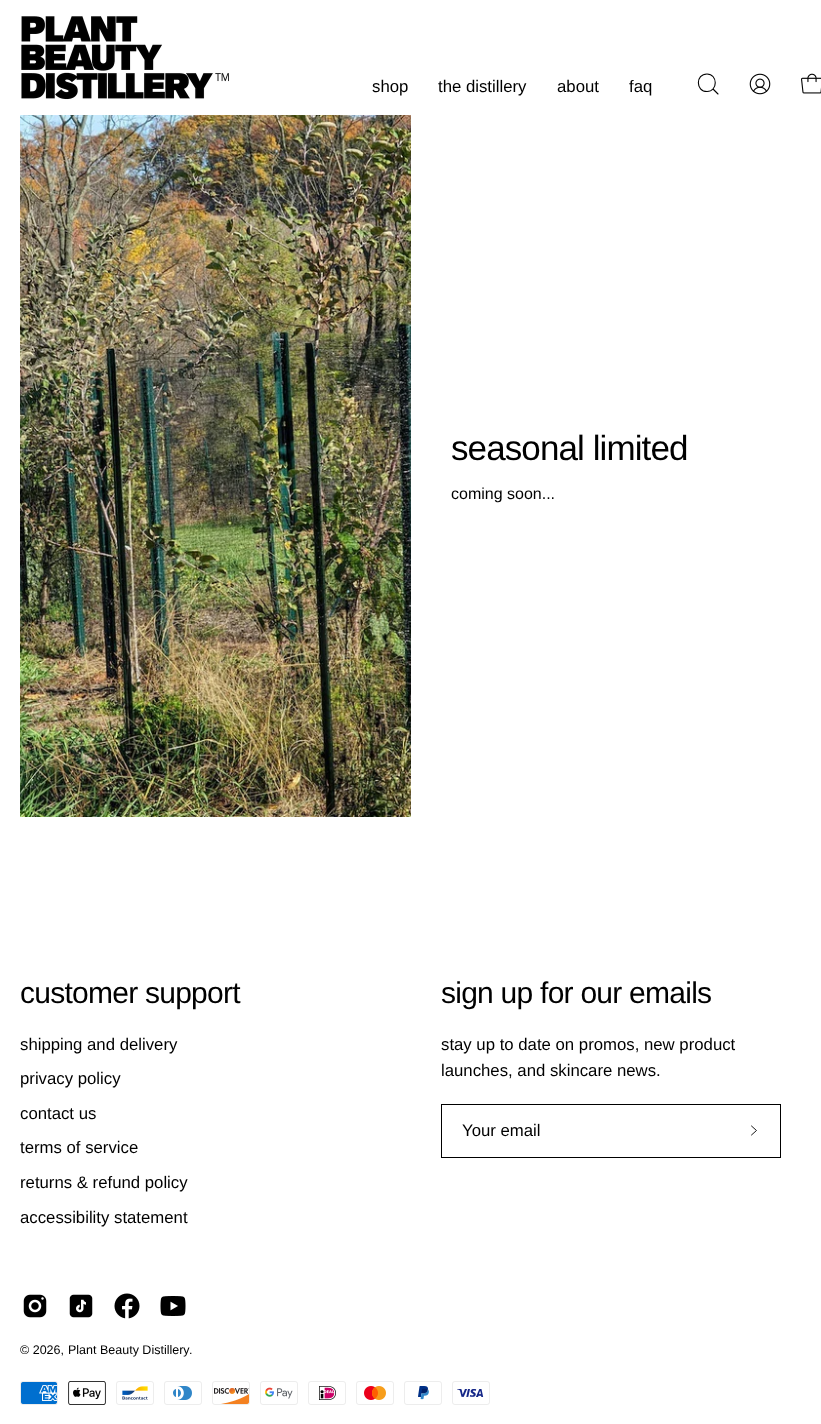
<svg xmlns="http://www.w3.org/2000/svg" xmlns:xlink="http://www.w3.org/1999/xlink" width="821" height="1424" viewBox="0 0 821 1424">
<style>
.cls-1{font:16.75px Liberation Sans;fill:#000000}
.cls-2{font:35px Liberation Sans;letter-spacing:-0.9px;fill:#000000}
.cls-3{font:16px Liberation Sans;fill:#000000}
.cls-4{font:30px Liberation Sans;letter-spacing:-0.75px;fill:#000000}
.cls-5{font:12.5px Liberation Sans;fill:#000000}
</style>
<rect width="100%" height="100%" fill="#ffffff"/>
<image xlink:href="image0.png" x="21" y="16" width="208" height="84"/>
<path fill="none" stroke="#000000" stroke-width="1.1" stroke-linecap="round" stroke-linejoin="round" d="M707 91.5C718 91.5 718 74 707 74C695.5 74 695.5 91.5 707 91.5ZM713 89L718 94"/>
<image xlink:href="image1.png" x="749" y="73" width="22" height="22"/>
<image xlink:href="image2.png" x="801" y="73" width="20" height="21"/>
<image xlink:href="image3.png" x="20" y="115" width="391" height="702"/>
<rect fill="#000000" x="441" y="1104" width="340" height="1"/>
<rect fill="#000000" x="441" y="1157" width="286" height="1"/>
<rect fill="#000000" x="441" y="1104" width="1" height="54"/>
<rect fill="#000000" x="780" y="1104" width="1" height="54"/>
<rect fill="#000000" x="727" y="1157" width="54" height="1"/>
<path fill="none" stroke="#000000" stroke-width="0.9" stroke-linecap="round" stroke-linejoin="round" d="M751.5 1126L756.5 1130.5L751.5 1135"/>
<image xlink:href="image4.png" x="23" y="1294" width="24" height="24"/>
<image xlink:href="image5.png" x="69" y="1294" width="24" height="24"/>
<image xlink:href="image6.png" x="114" y="1293" width="26" height="26"/>
<image xlink:href="image7.png" x="160" y="1296" width="26" height="20"/>
<image xlink:href="image8.png" x="20" y="1381" width="38" height="24"/>
<image xlink:href="image9.png" x="68" y="1381" width="38" height="24"/>
<image xlink:href="image10.png" x="116" y="1381" width="38" height="24"/>
<image xlink:href="image11.png" x="164" y="1381" width="38" height="24"/>
<image xlink:href="image12.png" x="212" y="1381" width="38" height="24"/>
<image xlink:href="image13.png" x="260" y="1381" width="38" height="24"/>
<image xlink:href="image14.png" x="308" y="1381" width="38" height="24"/>
<image xlink:href="image15.png" x="356" y="1381" width="38" height="24"/>
<image xlink:href="image16.png" x="404" y="1381" width="38" height="24"/>
<image xlink:href="image17.png" x="452" y="1381" width="38" height="24"/>
<text class="cls-1" x="372" y="92">shop</text>
<text class="cls-1" x="438" y="92">the distillery</text>
<text class="cls-1" x="557" y="92">about</text>
<text class="cls-1" x="629" y="92">faq</text>
<text class="cls-2" x="451" y="460">seasonal limited</text>
<text class="cls-3" x="451" y="499">coming soon...</text>
<text class="cls-4" x="20" y="1003">customer support</text>
<text class="cls-1" x="20" y="1050">shipping and delivery</text>
<text class="cls-1" x="20" y="1084">privacy policy</text>
<text class="cls-1" x="20" y="1119">contact us</text>
<text class="cls-1" x="20" y="1153">terms of service</text>
<text class="cls-1" x="20" y="1188">returns &amp; refund policy</text>
<text class="cls-1" x="20" y="1223">accessibility statement</text>
<text class="cls-4" x="441" y="1003">sign up for our emails</text>
<text class="cls-1"><tspan x="441" y="1050">stay up to date on promos, new product</tspan><tspan x="441" y="1076">launches, and skincare news.</tspan></text>
<text class="cls-1" x="462" y="1136">Your email</text>
<text class="cls-5" x="20" y="1354">© 2026,</text>
<text class="cls-5" x="68" y="1354">Plant Beauty Distillery</text>
<text class="cls-5" x="189" y="1354">.</text>
</svg>
